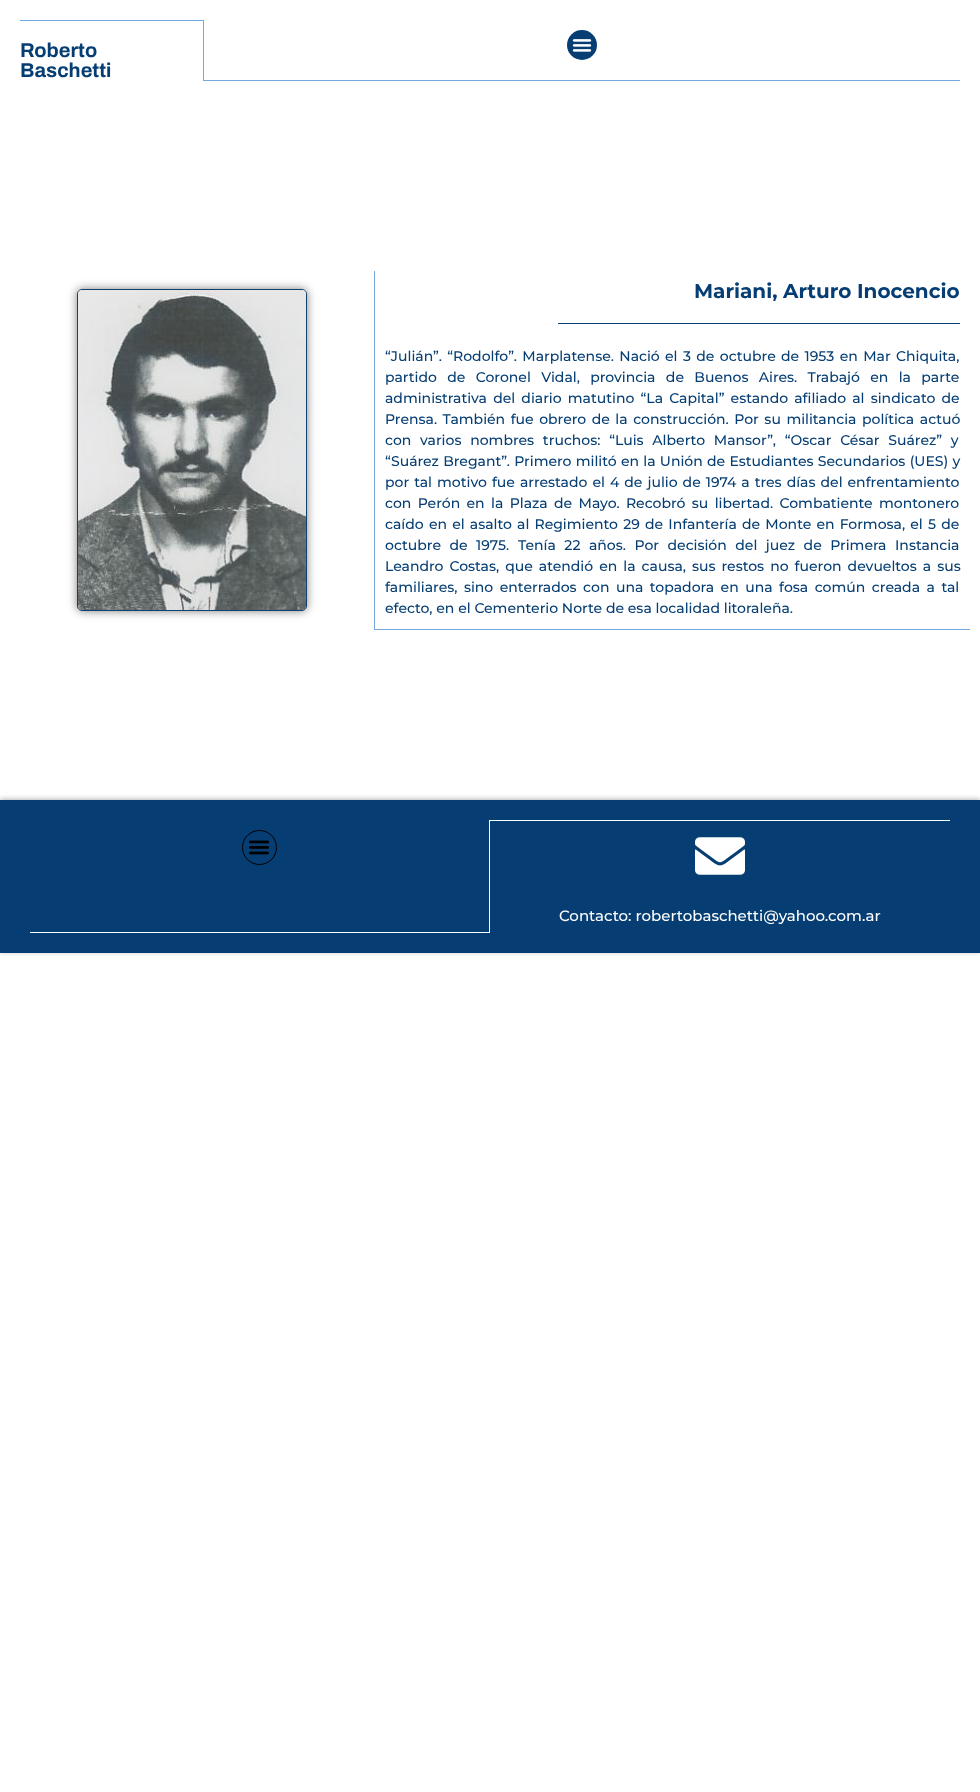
<svg xmlns="http://www.w3.org/2000/svg" xmlns:xlink="http://www.w3.org/1999/xlink" width="980" height="1792" viewBox="0 0 980 1792">
<style>
.cls-1{font:bold 20px Archivo;fill:#063e73}
.cls-2{font:bold 20px Montserrat;fill:#063e73}
.cls-3{font:500 14px Montserrat;fill:#063e73}
.cls-4{font:500 15px Montserrat;fill:#ffffff}
</style>
<rect width="100%" height="100%" fill="#ffffff"/>
<rect fill="#75aadd" x="20" y="20" width="184" height="1"/>
<rect fill="#75aadd" x="203" y="20" width="1" height="61"/>
<rect fill="#75aadd" x="204" y="80" width="756" height="1"/>
<circle fill="#063e73" cx="582" cy="45" r="15"/>
<image xlink:href="image0.png" x="572" y="39" width="20" height="13"/>
<rect fill="#75aadd" x="374" y="271" width="1" height="359"/>
<rect fill="#000000" fill-opacity="0.5" filter="blur(5px)" x="77" y="289" width="230" height="322" rx="5"/>
<rect fill="none" stroke="#11416e" x="77.5" y="289.5" width="229" height="321" rx="4.5"/>
<image xlink:href="image1.png" x="78" y="290" width="228" height="320"/>
<rect fill="#75aadd" x="375" y="629" width="595" height="1"/>
<rect fill="#063e73" x="558" y="323" width="402" height="1"/>
<rect fill="#000000" fill-opacity="0.29" filter="blur(2.5px)" x="0" y="799" width="980" height="153"/>
<rect fill="#063e73" x="0" y="800" width="980" height="153"/>
<rect fill="#ffffff" x="489" y="820" width="1" height="113"/>
<rect fill="#ffffff" x="30" y="932" width="460" height="1"/>
<circle fill="none" stroke="#000000" cx="259.5" cy="847.5" r="17"/>
<image xlink:href="image2.png" x="249" y="840" width="20" height="15"/>
<rect fill="#ffffff" x="490" y="820" width="460" height="1"/>
<image xlink:href="image3.png" x="695" y="837" width="50" height="38"/>
<text class="cls-1"><tspan x="20" y="57">Roberto</tspan><tspan x="20" y="77">Baschetti</tspan></text>
<text class="cls-2" x="694" y="298">Mariani, Arturo Inocencio</text>
<text class="cls-3"><tspan x="385" y="361" word-spacing="1.6">“Julián”. “Rodolfo”. Marplatense. Nació el 3 de octubre de 1953 en Mar Chiquita,</tspan><tspan x="385" y="382" word-spacing="6.6">partido de Coronel Vidal, provincia de Buenos Aires. Trabajó en la parte</tspan><tspan x="385" y="403" word-spacing="2.4">administrativa del diario matutino “La Capital” estando afiliado al sindicato de</tspan><tspan x="385" y="424" word-spacing="1.75">Prensa. También fue obrero de la construcción. Por su militancia política actuó</tspan><tspan x="385" y="445" word-spacing="5">con varios nombres truchos: “Luis Alberto Mansor”, “Oscar César Suárez” y</tspan><tspan x="385" y="466" word-spacing="0.5">“Suárez Bregant”. Primero militó en la Unión de Estudiantes Secundarios (UES) y</tspan><tspan x="385" y="487" word-spacing="1.25">por tal motivo fue arrestado el 4 de julio de 1974 a tres días del enfrentamiento</tspan><tspan x="385" y="508" word-spacing="2.6">con Perón en la Plaza de Mayo. Recobró su libertad. Combatiente montonero</tspan><tspan x="385" y="529" word-spacing="1.4">caído en el asalto al Regimiento 29 de Infantería de Monte en Formosa, el 5 de</tspan><tspan x="385" y="550" word-spacing="4.75">octubre de 1975.</tspan></text>
<text class="cls-3" x="518" y="550" word-spacing="4.75">Tenía 22 años. Por decisión del juez de Primera Instancia</text>
<text class="cls-3"><tspan x="385" y="571" word-spacing="2.25">Leandro Costas, que atendió en la causa, sus restos no fueron devueltos a sus</tspan><tspan x="385" y="592" word-spacing="2.75">familiares, sino enterrados con una topadora en una fosa común creada a tal</tspan><tspan x="385" y="613">efecto, en el Cementerio Norte de esa localidad litoraleña.</tspan></text>
<text class="cls-4" x="559" y="921">Contacto: robertobaschetti@yahoo.com.ar</text>
</svg>
